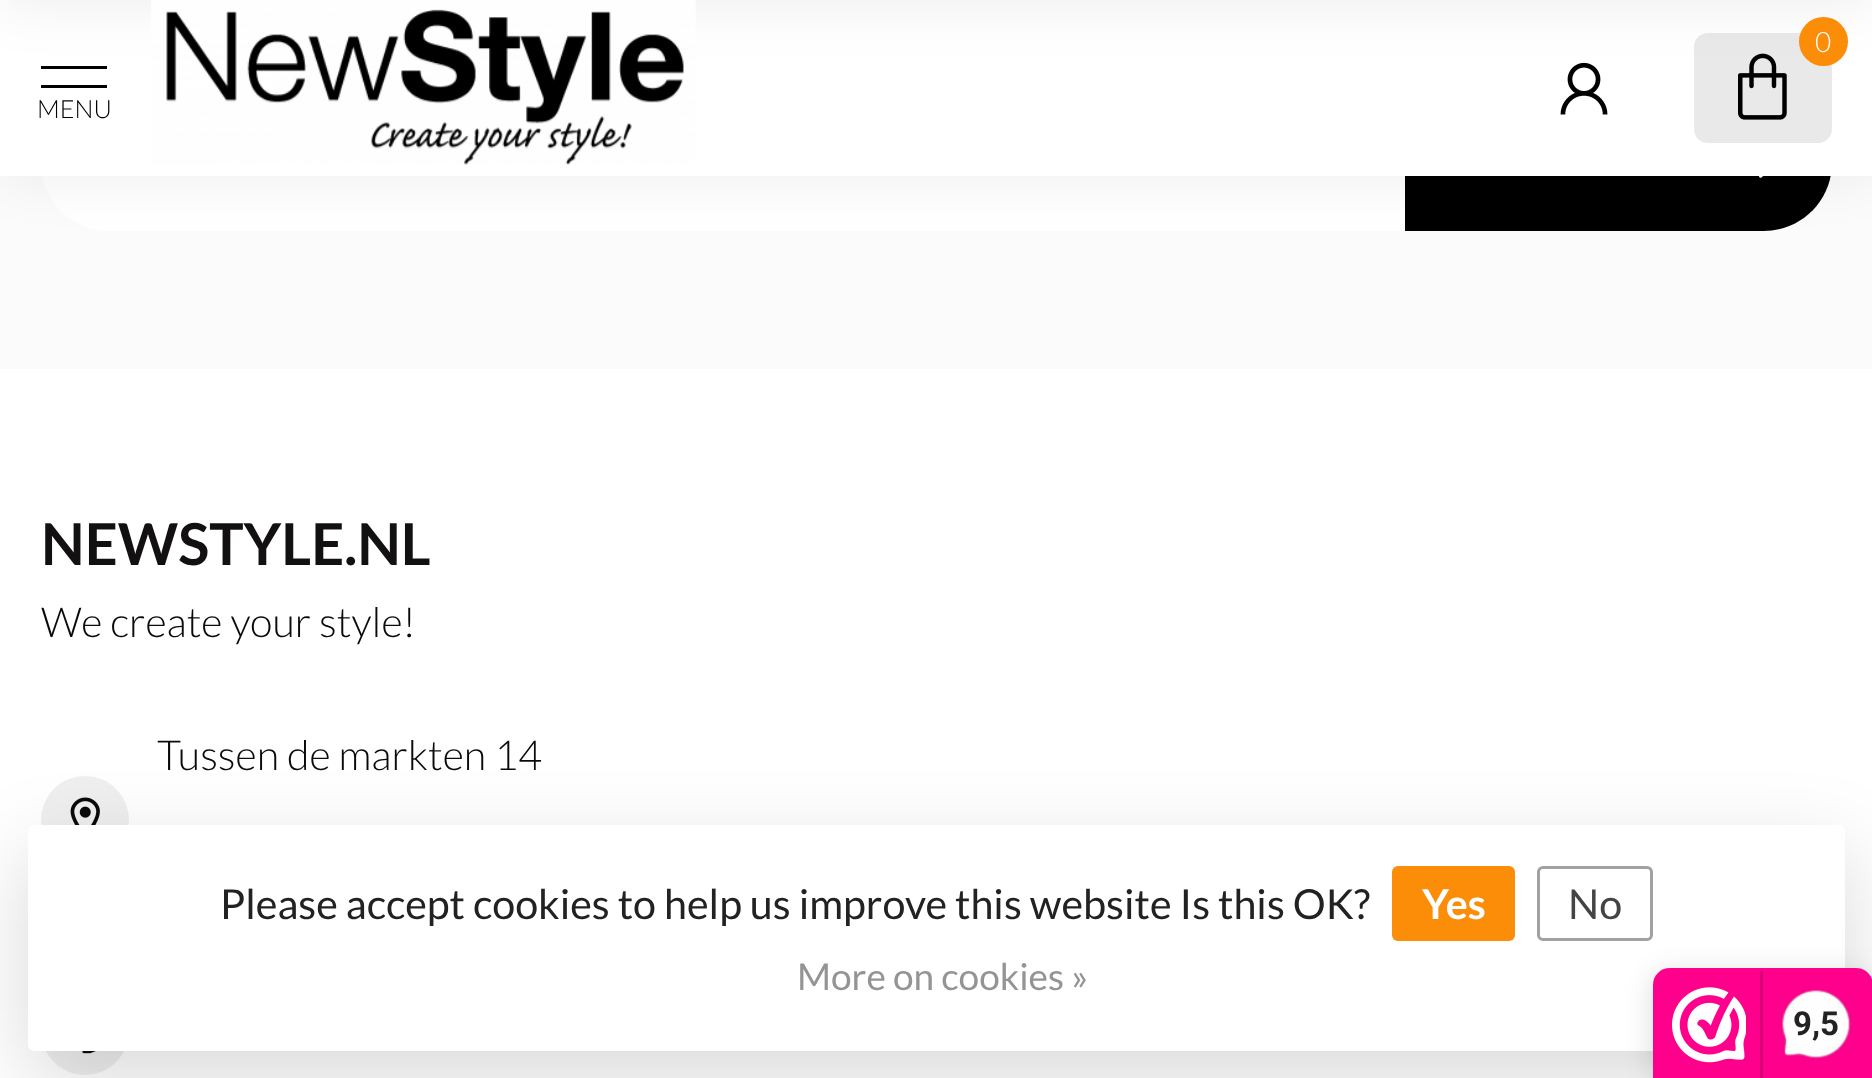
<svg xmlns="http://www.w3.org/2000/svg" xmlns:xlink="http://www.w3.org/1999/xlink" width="1872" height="1078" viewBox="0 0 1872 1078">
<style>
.cls-1{font:300 28px Lato;fill:#ffffff}
.cls-2{font:300 25px Lato;fill:#000000}
.cls-3{font:bold 57.75px Lato;fill:#121010}
.cls-4{font:300 41.25px Lato;fill:#0a0a0a}
.cls-5{font:41.25px Lato;fill:#222222}
.cls-6{font:bold 41.25px Lato;fill:#ffffff}
.cls-7{font:41.25px Lato;fill:#444444}
.cls-8{font:37px Lato;fill:#949494}
.cls-9{font:bold 33px Roboto;fill:#222222}
</style>
<rect width="100%" height="100%" fill="#ffffff"/>
<rect fill="#fbfbfb" x="0" y="176" width="1872" height="193"/>
<path fill="#ffffff" d="M109.5 94H1405V231H109.5C71.5 231 41 200.5 41 162.5C41 124.5 71.5 94 109.5 94Z"/>
<path fill="#000000" d="M1405 94H1763.5C1801.5 94 1832 124.5 1832 162.5C1832 200.5 1801.5 231 1763.5 231H1405Z"/>
<image xlink:href="image3.png" x="1758" y="176" width="5" height="2"/>
<rect fill="#000000" fill-opacity="0.07" filter="blur(27.5px)" x="0" y="-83" width="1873" height="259"/>
<rect fill="#ffffff" x="0" y="0" width="1872" height="176"/>
<rect fill="#000000" fill-opacity="0.08" filter="blur(30px)" x="0" y="-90" width="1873" height="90"/>
<image xlink:href="image0.png" x="151" y="0" width="545" height="165"/>
<rect fill="#666666" fill-opacity="0.14" x="1694" y="33" width="138" height="110" rx="14"/>
<circle fill="#fb8d08" cx="1823.5" cy="41.5" r="24.5"/>
<image xlink:href="image1.png" x="1738" y="53" width="49" height="67"/>
<image xlink:href="image2.png" x="1560" y="62" width="48" height="53"/>
<rect fill="#000000" x="41" y="66" width="66" height="3"/>
<rect fill="#000000" x="41" y="85" width="66" height="3"/>
<circle fill="#efefef" cx="85" cy="820" r="44"/>
<image xlink:href="image4.png" x="70" y="797" width="30" height="28"/>
<circle fill="#efefef" cx="85" cy="1031" r="44"/>
<image xlink:href="image5.png" x="82" y="1051" width="14" height="3"/>
<rect fill="#000000" fill-opacity="0.15" filter="blur(41px)" x="28" y="853" width="1817" height="225" rx="6"/>
<rect fill="#ffffff" x="28" y="825" width="1817" height="226" rx="6"/>
<rect fill="#fb8d08" x="1392" y="866" width="123" height="75" rx="6"/>
<rect fill="none" stroke="#a1a1a1" stroke-width="3" x="1538.5" y="867.5" width="113" height="72" rx="4.5"/>
<rect fill="#000000" fill-opacity="0.15" filter="blur(14px)" x="1653" y="974" width="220" height="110" rx="17"/>
<path fill="#fe008c" d="M1670 968H1856C1865.5 968 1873 975.5 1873 985V1078H1653V985C1653 975.5 1660.5 968 1670 968Z"/>
<image xlink:href="image6.png" x="1672" y="987" width="74" height="76"/>
<rect fill="#d80077" x="1760" y="971" width="3" height="107"/>
<image xlink:href="image7.png" x="1782" y="990" width="69" height="69"/>
<text class="cls-1" x="1815" y="52">0</text>
<text class="cls-2" x="37" y="118">MENU</text>
<text class="cls-3" x="41" y="565">NEWSTYLE.NL</text>
<text class="cls-4" x="41" y="637">We create your style!</text>
<text class="cls-4" x="157" y="770">Tussen de markten 14</text>
<text class="cls-5" x="220" y="919">Please accept cookies to help us improve this website Is this OK?</text>
<text class="cls-6" x="1422" y="919">Yes</text>
<text class="cls-7" x="1568" y="919">No</text>
<text class="cls-8" x="797" y="990">More on cookies »</text>
<text class="cls-9" x="1793" y="1035">9,5</text>
</svg>
